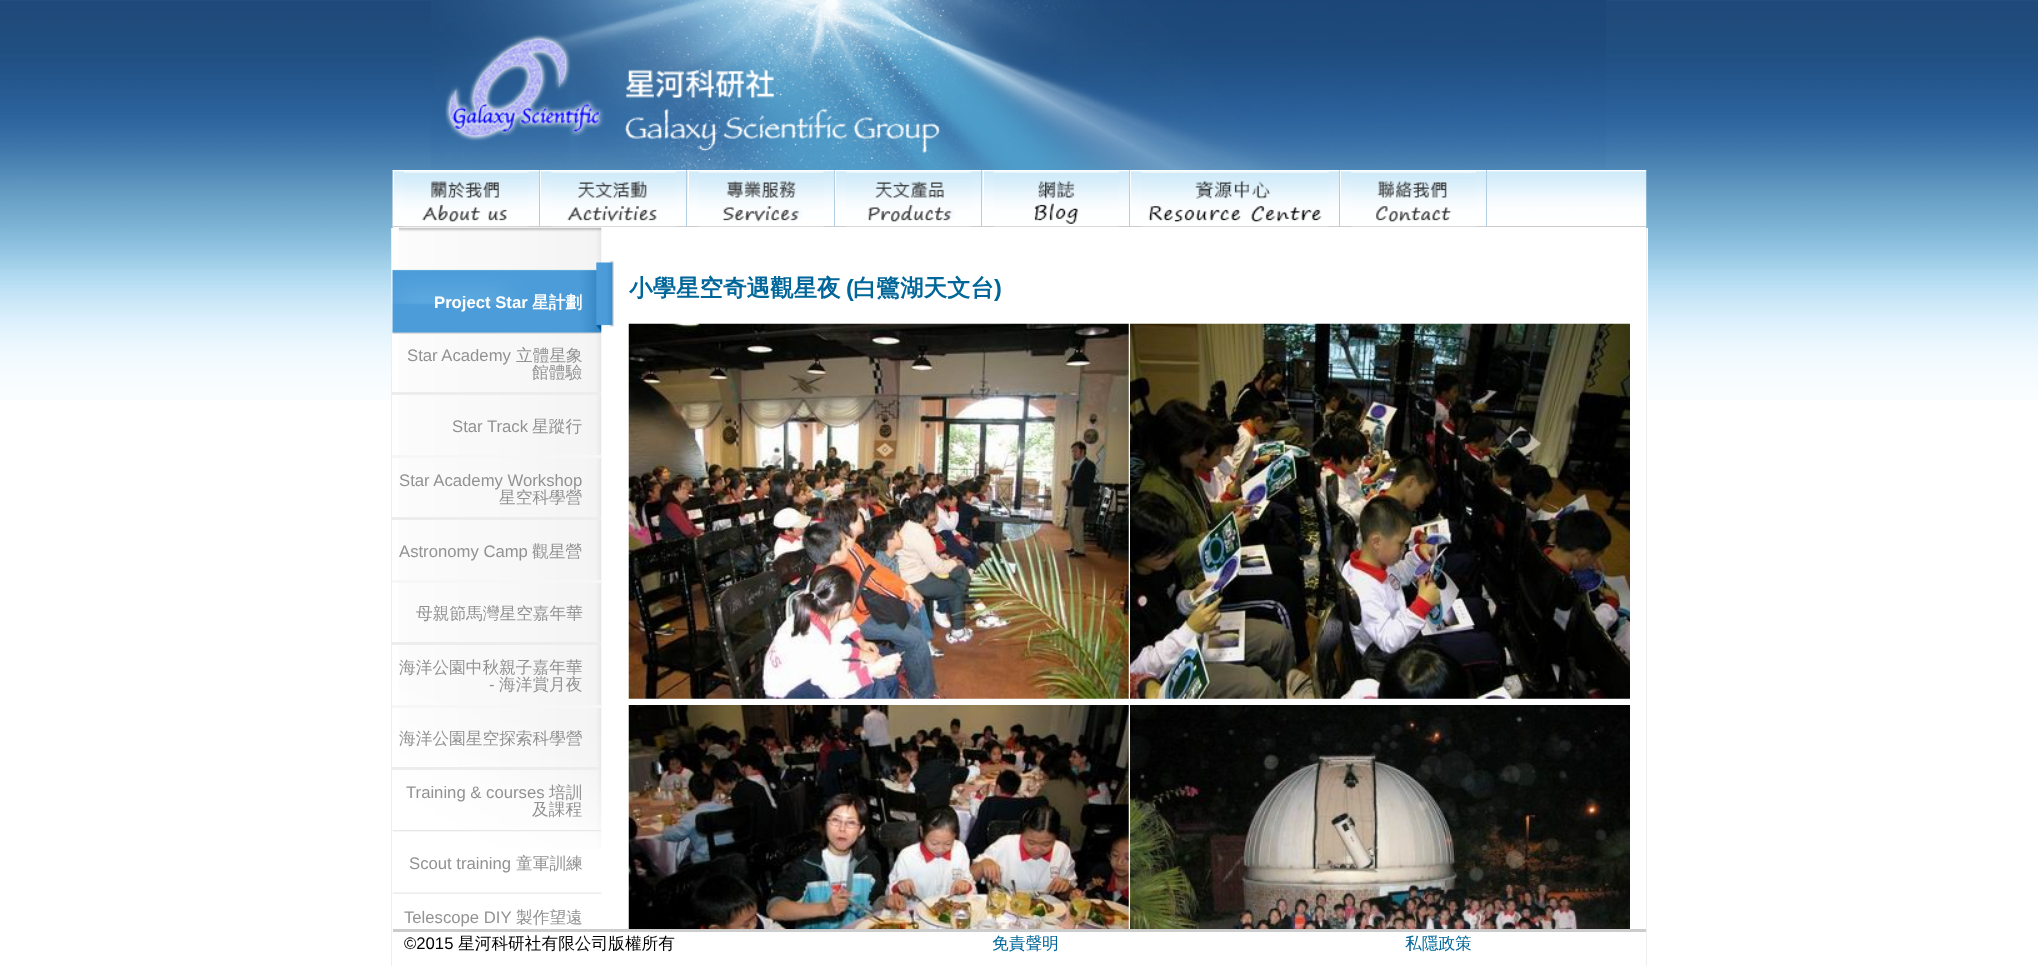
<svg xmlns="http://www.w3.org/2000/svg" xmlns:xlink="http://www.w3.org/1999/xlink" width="2038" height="966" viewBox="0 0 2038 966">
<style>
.cls-1{font:bold 23.5px WenQuanYi Zen Hei;fill:#006699}
.cls-2{font:bold 23.5px Liberation Sans;fill:#006699}
.cls-3{font:bold 16.7px Liberation Sans;fill:#ffffff}
.cls-4{font:bold 16.7px WenQuanYi Zen Hei;fill:#ffffff}
.cls-5{font:16.7px Liberation Sans;fill:#939292}
.cls-6{font:500 16.7px WenQuanYi Zen Hei;fill:#939292}
.cls-7{font:16.7px Liberation Sans;fill:#000000}
.cls-8{font:500 16.7px WenQuanYi Zen Hei;fill:#000000}
.cls-9{font:500 16.7px WenQuanYi Zen Hei;fill:#006699}
</style>
<rect width="100%" height="100%" fill="#ffffff"/>
<image xlink:href="image0.png" x="0" y="0" width="2038" height="400"/>
<image xlink:href="image1.png" x="431" y="0" width="1175" height="170"/>
<image xlink:href="image2.png" x="445" y="31" width="498" height="126"/>
<rect fill="#ffffff" x="393" y="227" width="1253" height="1"/>
<image xlink:href="image3.png" x="392" y="170" width="1255" height="58"/>
<rect fill="#cccccc" x="393" y="226" width="1253" height="1"/>
<rect fill="#b2cee3" x="539" y="170" width="1" height="56"/>
<rect fill="#ffffff" x="393" y="170" width="1" height="41"/>
<image xlink:href="image4.png" x="403" y="171" width="126" height="56"/>
<rect fill="#b2cee3" x="686" y="170" width="1" height="56"/>
<rect fill="#ffffff" x="540" y="170" width="1" height="41"/>
<image xlink:href="image5.png" x="551" y="171" width="126" height="56"/>
<rect fill="#b2cee3" x="834" y="170" width="1" height="56"/>
<rect fill="#ffffff" x="688" y="170" width="1" height="41"/>
<image xlink:href="image6.png" x="698" y="171" width="126" height="56"/>
<rect fill="#b2cee3" x="981" y="170" width="1" height="56"/>
<rect fill="#ffffff" x="835" y="170" width="1" height="41"/>
<image xlink:href="image7.png" x="846" y="171" width="126" height="56"/>
<rect fill="#b2cee3" x="1129" y="170" width="1" height="56"/>
<rect fill="#ffffff" x="983" y="170" width="1" height="41"/>
<image xlink:href="image8.png" x="993" y="171" width="126" height="56"/>
<rect fill="#b2cee3" x="1339" y="170" width="1" height="56"/>
<rect fill="#ffffff" x="1130" y="170" width="1" height="41"/>
<image xlink:href="image9.png" x="1141" y="171" width="188" height="56"/>
<rect fill="#b2cee3" x="1486" y="170" width="1" height="56"/>
<rect fill="#ffffff" x="1340" y="170" width="1" height="41"/>
<image xlink:href="image10.png" x="1351" y="171" width="126" height="56"/>
<rect fill="#ffffff" x="392" y="228" width="1256" height="172"/>
<rect fill="#eeeeee" x="1646" y="228" width="1" height="738"/>
<rect fill="#eeeeee" x="391" y="228" width="1" height="738"/>
<image xlink:href="image11.png" x="628" y="323" width="501" height="376"/>
<image xlink:href="image12.png" x="1130" y="323" width="500" height="376"/>
<image xlink:href="image13.png" x="628" y="705" width="501" height="224"/>
<image xlink:href="image14.png" x="1130" y="705" width="500" height="224"/>
<image xlink:href="image15.png" x="398" y="227" width="204" height="622"/>
<rect fill="#f7f7f7" x="392" y="330" width="1" height="3"/>
<image xlink:href="image16.png" x="392" y="261" width="222" height="73"/>
<rect fill="#ededed" x="392" y="392" width="209" height="3"/>
<rect fill="#f7f7f7" x="392" y="455" width="210" height="3"/>
<rect fill="#ededed" x="392" y="517" width="209" height="3"/>
<rect fill="#f7f7f7" x="392" y="580" width="210" height="3"/>
<rect fill="#ededed" x="392" y="642" width="209" height="3"/>
<rect fill="#f7f7f7" x="392" y="705" width="210" height="3"/>
<rect fill="#ededed" x="392" y="767" width="209" height="3"/>
<image xlink:href="image17.png" x="392" y="830" width="210" height="2"/>
<image xlink:href="image18.png" x="392" y="892" width="210" height="2"/>
<image xlink:href="image19.png" x="392" y="955" width="1" height="2"/>
<rect fill="#cccccc" x="393" y="929" width="1253" height="3"/>
<text class="cls-1" x="629" y="296">小學星空奇遇觀星夜</text>
<text class="cls-2" x="846" y="296">(</text>
<text class="cls-1" x="853" y="296">白鷺湖天文台</text>
<text class="cls-2" x="994" y="296">)</text>
<text class="cls-3" x="434" y="308">Project Star</text>
<text class="cls-4" x="532" y="308">星計劃</text>
<text class="cls-5" x="407" y="361">Star Academy</text>
<text class="cls-6" x="516" y="361">立體星象</text>
<text class="cls-6" x="532" y="378">館體驗</text>
<text class="cls-5" x="452" y="432">Star Track</text>
<text class="cls-6" x="532" y="432">星蹤行</text>
<text class="cls-5" x="399" y="486">Star Academy Workshop</text>
<text class="cls-6" x="499" y="503">星空科學營</text>
<text class="cls-5" x="399" y="557">Astronomy Camp</text>
<text class="cls-6" x="532" y="557">觀星營</text>
<text class="cls-6" x="416" y="619">母親節馬灣星空嘉年華</text>
<text class="cls-6" x="399" y="673">海洋公園中秋親子嘉年華</text>
<text class="cls-5" x="489" y="690">-</text>
<text class="cls-6" x="499" y="690">海洋賞月夜</text>
<text class="cls-6" x="399" y="744">海洋公園星空探索科學營</text>
<text class="cls-5" x="406" y="798">Training &amp; courses</text>
<text class="cls-6" x="549" y="798">培訓</text>
<text class="cls-6" x="532" y="815">及課程</text>
<text class="cls-5" x="409" y="869">Scout training</text>
<text class="cls-6" x="516" y="869">童軍訓練</text>
<text class="cls-5" x="404" y="923">Telescope DIY</text>
<text class="cls-6" x="516" y="923">製作望遠</text>
<text class="cls-7" x="404" y="949">©2015</text>
<text class="cls-8" x="458" y="949">星河科研社有限公司版權所有</text>
<text class="cls-9" x="992" y="949">免責聲明</text>
<text class="cls-9" x="1405" y="949">私隱政策</text>
</svg>
